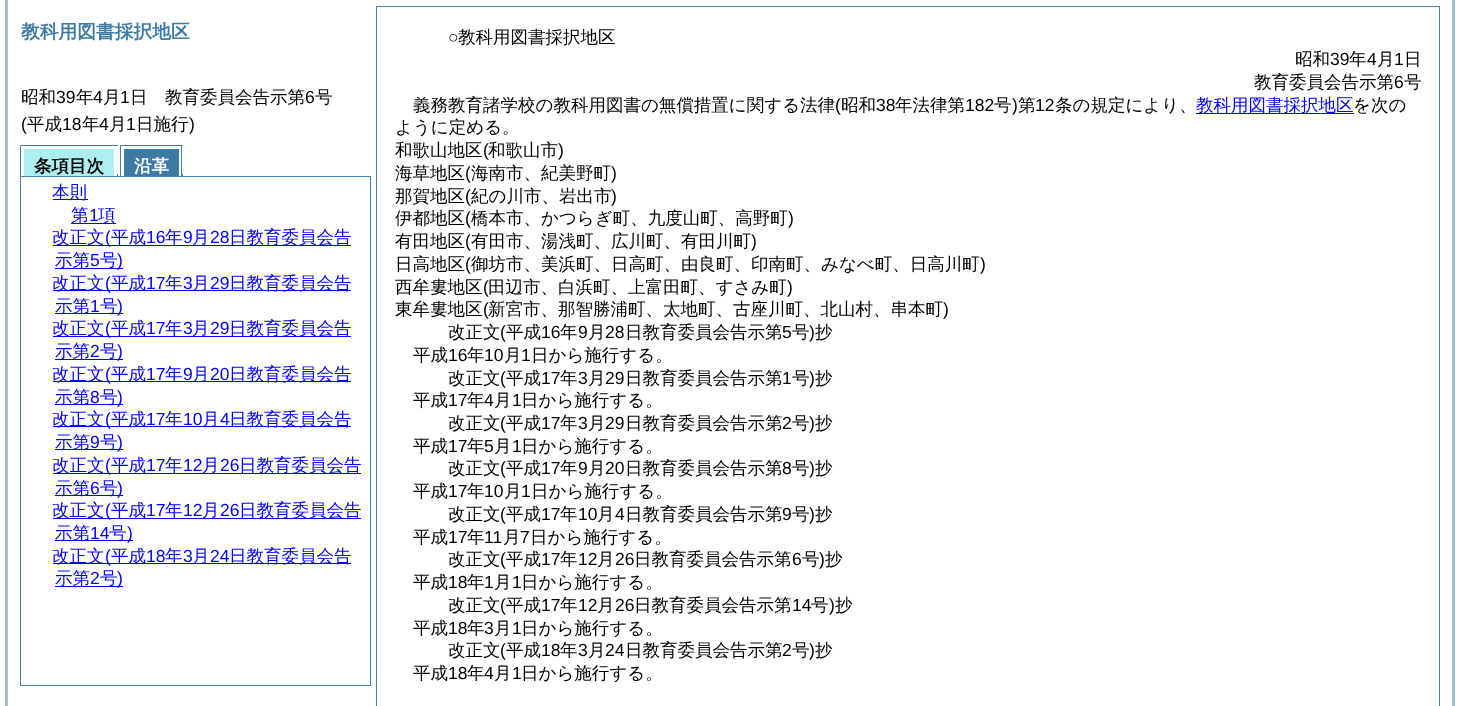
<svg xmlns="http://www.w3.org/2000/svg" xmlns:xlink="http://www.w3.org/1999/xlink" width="1460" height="706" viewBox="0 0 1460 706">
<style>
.cls-1{font:bold 18.75px WenQuanYi Zen Hei;fill:#3d7aa4}
.cls-2{font:500 17.5px WenQuanYi Zen Hei;fill:#000000}
.cls-3{font:17.5px Liberation Sans;fill:#000000}
.cls-4{font:bold 17.5px WenQuanYi Zen Hei;fill:#000000}
.cls-5{font:bold 17.5px WenQuanYi Zen Hei;fill:#ffffff}
.cls-6{font:500 17.5px WenQuanYi Zen Hei;fill:#0000ff}
.cls-7{font:17.5px Liberation Sans;fill:#0000ff}
</style>
<rect width="100%" height="100%" fill="#ffffff"/>
<rect fill="none" stroke="#a0bfcc" stroke-width="3" x="6.5" y="-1.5" width="1447" height="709"/>
<rect fill="#4682b4" x="20" y="145" width="98" height="1"/>
<rect fill="#4682b4" x="117" y="174" width="1" height="2"/>
<rect fill="#4682b4" x="20" y="145" width="1" height="33"/>
<rect fill="#afeeee" x="24" y="149" width="90" height="27"/>
<rect fill="#4682b4" x="120" y="145" width="63" height="1"/>
<rect fill="#4682b4" x="181" y="145" width="1" height="33"/>
<rect fill="#4682b4" x="181" y="174" width="2" height="2"/>
<rect fill="#4682b4" x="120" y="145" width="1" height="33"/>
<rect fill="#3d7aa4" x="124" y="149" width="55" height="27"/>
<rect fill="#ffffff" x="120" y="177" width="62" height="1"/>
<rect fill="none" stroke="#4682b4" x="20.5" y="176.5" width="350" height="509"/>
<rect fill="#0000ff" x="53" y="199" width="35" height="1"/>
<rect fill="#0000ff" x="71" y="223" width="45" height="1"/>
<rect fill="#0000ff" x="53" y="245" width="298" height="1"/>
<rect fill="#0000ff" x="55" y="268" width="68" height="1"/>
<rect fill="#0000ff" x="53" y="290" width="298" height="1"/>
<rect fill="#0000ff" x="55" y="313" width="68" height="1"/>
<rect fill="#0000ff" x="53" y="336" width="298" height="1"/>
<rect fill="#0000ff" x="55" y="359" width="68" height="1"/>
<rect fill="#0000ff" x="53" y="381" width="298" height="1"/>
<rect fill="#0000ff" x="55" y="404" width="68" height="1"/>
<rect fill="#0000ff" x="53" y="426" width="298" height="1"/>
<rect fill="#0000ff" x="55" y="449" width="68" height="1"/>
<rect fill="#0000ff" x="53" y="473" width="308" height="1"/>
<rect fill="#0000ff" x="55" y="495" width="68" height="1"/>
<rect fill="#0000ff" x="53" y="518" width="308" height="1"/>
<rect fill="#0000ff" x="55" y="540" width="78" height="1"/>
<rect fill="#0000ff" x="53" y="563" width="298" height="1"/>
<rect fill="#0000ff" x="55" y="586" width="68" height="1"/>
<rect fill="none" stroke="#4682b4" x="376.5" y="6.5" width="1063" height="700"/>
<rect fill="#0000ff" x="1196" y="113" width="158" height="1"/>
<text class="cls-1" x="21" y="38">教科用図書採択地区</text>
<text class="cls-2" x="21" y="103">昭和</text>
<text class="cls-3" x="56" y="103">39</text>
<text class="cls-2" x="76" y="103">年</text>
<text class="cls-3" x="93" y="103">4</text>
<text class="cls-2" x="103" y="103">月</text>
<text class="cls-3" x="120" y="103">1</text>
<text class="cls-2" x="130" y="103">日　教育委員会告示第</text>
<text class="cls-3" x="305" y="103">6</text>
<text class="cls-2" x="315" y="103">号</text>
<text class="cls-3" x="21" y="130">(</text>
<text class="cls-2" x="27" y="130">平成</text>
<text class="cls-3" x="62" y="130">18</text>
<text class="cls-2" x="82" y="130">年</text>
<text class="cls-3" x="99" y="130">4</text>
<text class="cls-2" x="109" y="130">月</text>
<text class="cls-3" x="126" y="130">1</text>
<text class="cls-2" x="136" y="130">日施行</text>
<text class="cls-3" x="189" y="130">)</text>
<text class="cls-4" x="34" y="172">条項目次</text>
<text class="cls-5" x="134" y="172">沿革</text>
<text class="cls-6" x="52" y="198">本則</text>
<text class="cls-6" x="71" y="221">第</text>
<text class="cls-7" x="89" y="221">1</text>
<text class="cls-6" x="98" y="221">項</text>
<text class="cls-6" x="52" y="243">改正文</text>
<text class="cls-7" x="105" y="243">(</text>
<text class="cls-6" x="111" y="243">平成</text>
<text class="cls-7" x="146" y="243">16</text>
<text class="cls-6" x="165" y="243">年</text>
<text class="cls-7" x="183" y="243">9</text>
<text class="cls-6" x="192" y="243">月</text>
<text class="cls-7" x="210" y="243">28</text>
<text class="cls-6" x="229" y="243">日教育委員会告</text>
<text class="cls-6" x="55" y="266">示第</text>
<text class="cls-7" x="90" y="266">5</text>
<text class="cls-6" x="100" y="266">号</text>
<text class="cls-7" x="117" y="266">)</text>
<text class="cls-6" x="52" y="289">改正文</text>
<text class="cls-7" x="105" y="289">(</text>
<text class="cls-6" x="111" y="289">平成</text>
<text class="cls-7" x="146" y="289">17</text>
<text class="cls-6" x="165" y="289">年</text>
<text class="cls-7" x="183" y="289">3</text>
<text class="cls-6" x="192" y="289">月</text>
<text class="cls-7" x="210" y="289">29</text>
<text class="cls-6" x="229" y="289">日教育委員会告</text>
<text class="cls-6" x="55" y="312">示第</text>
<text class="cls-7" x="90" y="312">1</text>
<text class="cls-6" x="100" y="312">号</text>
<text class="cls-7" x="117" y="312">)</text>
<text class="cls-6" x="52" y="334">改正文</text>
<text class="cls-7" x="105" y="334">(</text>
<text class="cls-6" x="111" y="334">平成</text>
<text class="cls-7" x="146" y="334">17</text>
<text class="cls-6" x="165" y="334">年</text>
<text class="cls-7" x="183" y="334">3</text>
<text class="cls-6" x="192" y="334">月</text>
<text class="cls-7" x="210" y="334">29</text>
<text class="cls-6" x="229" y="334">日教育委員会告</text>
<text class="cls-6" x="55" y="357">示第</text>
<text class="cls-7" x="90" y="357">2</text>
<text class="cls-6" x="100" y="357">号</text>
<text class="cls-7" x="117" y="357">)</text>
<text class="cls-6" x="52" y="380">改正文</text>
<text class="cls-7" x="105" y="380">(</text>
<text class="cls-6" x="111" y="380">平成</text>
<text class="cls-7" x="146" y="380">17</text>
<text class="cls-6" x="165" y="380">年</text>
<text class="cls-7" x="183" y="380">9</text>
<text class="cls-6" x="192" y="380">月</text>
<text class="cls-7" x="210" y="380">20</text>
<text class="cls-6" x="229" y="380">日教育委員会告</text>
<text class="cls-6" x="55" y="403">示第</text>
<text class="cls-7" x="90" y="403">8</text>
<text class="cls-6" x="100" y="403">号</text>
<text class="cls-7" x="117" y="403">)</text>
<text class="cls-6" x="52" y="425">改正文</text>
<text class="cls-7" x="105" y="425">(</text>
<text class="cls-6" x="111" y="425">平成</text>
<text class="cls-7" x="146" y="425">17</text>
<text class="cls-6" x="165" y="425">年</text>
<text class="cls-7" x="183" y="425">10</text>
<text class="cls-6" x="202" y="425">月</text>
<text class="cls-7" x="220" y="425">4</text>
<text class="cls-6" x="229" y="425">日教育委員会告</text>
<text class="cls-6" x="55" y="448">示第</text>
<text class="cls-7" x="90" y="448">9</text>
<text class="cls-6" x="100" y="448">号</text>
<text class="cls-7" x="117" y="448">)</text>
<text class="cls-6" x="52" y="471">改正文</text>
<text class="cls-7" x="105" y="471">(</text>
<text class="cls-6" x="111" y="471">平成</text>
<text class="cls-7" x="146" y="471">17</text>
<text class="cls-6" x="165" y="471">年</text>
<text class="cls-7" x="183" y="471">12</text>
<text class="cls-6" x="202" y="471">月</text>
<text class="cls-7" x="220" y="471">26</text>
<text class="cls-6" x="239" y="471">日教育委員会告</text>
<text class="cls-6" x="55" y="494">示第</text>
<text class="cls-7" x="90" y="494">6</text>
<text class="cls-6" x="100" y="494">号</text>
<text class="cls-7" x="117" y="494">)</text>
<text class="cls-6" x="52" y="516">改正文</text>
<text class="cls-7" x="105" y="516">(</text>
<text class="cls-6" x="111" y="516">平成</text>
<text class="cls-7" x="146" y="516">17</text>
<text class="cls-6" x="165" y="516">年</text>
<text class="cls-7" x="183" y="516">12</text>
<text class="cls-6" x="202" y="516">月</text>
<text class="cls-7" x="220" y="516">26</text>
<text class="cls-6" x="239" y="516">日教育委員会告</text>
<text class="cls-6" x="55" y="539">示第</text>
<text class="cls-7" x="90" y="539">14</text>
<text class="cls-6" x="109" y="539">号</text>
<text class="cls-7" x="127" y="539">)</text>
<text class="cls-6" x="52" y="562">改正文</text>
<text class="cls-7" x="105" y="562">(</text>
<text class="cls-6" x="111" y="562">平成</text>
<text class="cls-7" x="146" y="562">18</text>
<text class="cls-6" x="165" y="562">年</text>
<text class="cls-7" x="183" y="562">3</text>
<text class="cls-6" x="192" y="562">月</text>
<text class="cls-7" x="210" y="562">24</text>
<text class="cls-6" x="229" y="562">日教育委員会告</text>
<text class="cls-6" x="55" y="584">示第</text>
<text class="cls-7" x="90" y="584">2</text>
<text class="cls-6" x="100" y="584">号</text>
<text class="cls-7" x="117" y="584">)</text>
<text class="cls-3" x="448" y="43">○</text>
<text class="cls-2" x="458" y="43">教科用図書採択地区</text>
<text class="cls-2" x="1295" y="65">昭和</text>
<text class="cls-3" x="1330" y="65">39</text>
<text class="cls-2" x="1349" y="65">年</text>
<text class="cls-3" x="1367" y="65">4</text>
<text class="cls-2" x="1377" y="65">月</text>
<text class="cls-3" x="1394" y="65">1</text>
<text class="cls-2" x="1404" y="65">日</text>
<text class="cls-2" x="1254" y="88">教育委員会告示第</text>
<text class="cls-3" x="1394" y="88">6</text>
<text class="cls-2" x="1404" y="88">号</text>
<text class="cls-2" x="413" y="111">義務教育諸学校の教科用図書の無償措置に関する法律</text>
<text class="cls-3" x="835" y="111">(</text>
<text class="cls-2" x="841" y="111">昭和</text>
<text class="cls-3" x="876" y="111">38</text>
<text class="cls-2" x="895" y="111">年法律第</text>
<text class="cls-3" x="965" y="111">182</text>
<text class="cls-2" x="994" y="111">号</text>
<text class="cls-3" x="1012" y="111">)</text>
<text class="cls-2" x="1018" y="111">第</text>
<text class="cls-3" x="1035" y="111">12</text>
<text class="cls-2" x="1055" y="111">条の規定により、</text>
<text class="cls-6" x="1196" y="111">教科用図書採択地区</text>
<text class="cls-2" x="1353" y="111">を次の</text>
<text class="cls-2"><tspan x="395" y="133">ように定める。</tspan><tspan x="395" y="156">和歌山地区</tspan></text>
<text class="cls-3" x="483" y="156">(</text>
<text class="cls-2" x="488" y="156">和歌山市</text>
<text class="cls-3" x="558" y="156">)</text>
<text class="cls-2" x="395" y="179">海草地区</text>
<text class="cls-3" x="465" y="179">(</text>
<text class="cls-2" x="471" y="179">海南市、紀美野町</text>
<text class="cls-3" x="611" y="179">)</text>
<text class="cls-2" x="395" y="202">那賀地区</text>
<text class="cls-3" x="465" y="202">(</text>
<text class="cls-2" x="471" y="202">紀の川市、岩出市</text>
<text class="cls-3" x="611" y="202">)</text>
<text class="cls-2" x="395" y="224">伊都地区</text>
<text class="cls-3" x="465" y="224">(</text>
<text class="cls-2" x="471" y="224">橋本市、かつらぎ町、九度山町、高野町</text>
<text class="cls-3" x="788" y="224">)</text>
<text class="cls-2" x="395" y="247">有田地区</text>
<text class="cls-3" x="465" y="247">(</text>
<text class="cls-2" x="471" y="247">有田市、湯浅町、広川町、有田川町</text>
<text class="cls-3" x="751" y="247">)</text>
<text class="cls-2" x="395" y="270">日高地区</text>
<text class="cls-3" x="465" y="270">(</text>
<text class="cls-2" x="471" y="270">御坊市、美浜町、日高町、由良町、印南町、みなべ町、日高川町</text>
<text class="cls-3" x="980" y="270">)</text>
<text class="cls-2" x="395" y="293">西牟婁地区</text>
<text class="cls-3" x="483" y="293">(</text>
<text class="cls-2" x="488" y="293">田辺市、白浜町、上富田町、すさみ町</text>
<text class="cls-3" x="787" y="293">)</text>
<text class="cls-2" x="395" y="315">東牟婁地区</text>
<text class="cls-3" x="483" y="315">(</text>
<text class="cls-2" x="488" y="315">新宮市、那智勝浦町、太地町、古座川町、北山村、串本町</text>
<text class="cls-3" x="943" y="315">)</text>
<text class="cls-2" x="448" y="338">改正文</text>
<text class="cls-3" x="500" y="338">(</text>
<text class="cls-2" x="506" y="338">平成</text>
<text class="cls-3" x="541" y="338">16</text>
<text class="cls-2" x="560" y="338">年</text>
<text class="cls-3" x="578" y="338">9</text>
<text class="cls-2" x="588" y="338">月</text>
<text class="cls-3" x="605" y="338">28</text>
<text class="cls-2" x="625" y="338">日教育委員会告示第</text>
<text class="cls-3" x="782" y="338">5</text>
<text class="cls-2" x="792" y="338">号</text>
<text class="cls-3" x="809" y="338">)</text>
<text class="cls-2" x="815" y="338">抄</text>
<text class="cls-2" x="413" y="361">平成</text>
<text class="cls-3" x="448" y="361">16</text>
<text class="cls-2" x="467" y="361">年</text>
<text class="cls-3" x="484" y="361">10</text>
<text class="cls-2" x="504" y="361">月</text>
<text class="cls-3" x="521" y="361">1</text>
<text class="cls-2" x="531" y="361">日から施行する。</text>
<text class="cls-2" x="448" y="384">改正文</text>
<text class="cls-3" x="500" y="384">(</text>
<text class="cls-2" x="506" y="384">平成</text>
<text class="cls-3" x="541" y="384">17</text>
<text class="cls-2" x="560" y="384">年</text>
<text class="cls-3" x="578" y="384">3</text>
<text class="cls-2" x="588" y="384">月</text>
<text class="cls-3" x="605" y="384">29</text>
<text class="cls-2" x="625" y="384">日教育委員会告示第</text>
<text class="cls-3" x="782" y="384">1</text>
<text class="cls-2" x="792" y="384">号</text>
<text class="cls-3" x="809" y="384">)</text>
<text class="cls-2" x="815" y="384">抄</text>
<text class="cls-2" x="413" y="406">平成</text>
<text class="cls-3" x="448" y="406">17</text>
<text class="cls-2" x="467" y="406">年</text>
<text class="cls-3" x="484" y="406">4</text>
<text class="cls-2" x="494" y="406">月</text>
<text class="cls-3" x="512" y="406">1</text>
<text class="cls-2" x="521" y="406">日から施行する。</text>
<text class="cls-2" x="448" y="429">改正文</text>
<text class="cls-3" x="500" y="429">(</text>
<text class="cls-2" x="506" y="429">平成</text>
<text class="cls-3" x="541" y="429">17</text>
<text class="cls-2" x="560" y="429">年</text>
<text class="cls-3" x="578" y="429">3</text>
<text class="cls-2" x="588" y="429">月</text>
<text class="cls-3" x="605" y="429">29</text>
<text class="cls-2" x="625" y="429">日教育委員会告示第</text>
<text class="cls-3" x="782" y="429">2</text>
<text class="cls-2" x="792" y="429">号</text>
<text class="cls-3" x="809" y="429">)</text>
<text class="cls-2" x="815" y="429">抄</text>
<text class="cls-2" x="413" y="452">平成</text>
<text class="cls-3" x="448" y="452">17</text>
<text class="cls-2" x="467" y="452">年</text>
<text class="cls-3" x="484" y="452">5</text>
<text class="cls-2" x="494" y="452">月</text>
<text class="cls-3" x="512" y="452">1</text>
<text class="cls-2" x="521" y="452">日から施行する。</text>
<text class="cls-2" x="448" y="474">改正文</text>
<text class="cls-3" x="500" y="474">(</text>
<text class="cls-2" x="506" y="474">平成</text>
<text class="cls-3" x="541" y="474">17</text>
<text class="cls-2" x="560" y="474">年</text>
<text class="cls-3" x="578" y="474">9</text>
<text class="cls-2" x="588" y="474">月</text>
<text class="cls-3" x="605" y="474">20</text>
<text class="cls-2" x="625" y="474">日教育委員会告示第</text>
<text class="cls-3" x="782" y="474">8</text>
<text class="cls-2" x="792" y="474">号</text>
<text class="cls-3" x="809" y="474">)</text>
<text class="cls-2" x="815" y="474">抄</text>
<text class="cls-2" x="413" y="497">平成</text>
<text class="cls-3" x="448" y="497">17</text>
<text class="cls-2" x="467" y="497">年</text>
<text class="cls-3" x="484" y="497">10</text>
<text class="cls-2" x="504" y="497">月</text>
<text class="cls-3" x="521" y="497">1</text>
<text class="cls-2" x="531" y="497">日から施行する。</text>
<text class="cls-2" x="448" y="520">改正文</text>
<text class="cls-3" x="500" y="520">(</text>
<text class="cls-2" x="506" y="520">平成</text>
<text class="cls-3" x="541" y="520">17</text>
<text class="cls-2" x="560" y="520">年</text>
<text class="cls-3" x="578" y="520">10</text>
<text class="cls-2" x="597" y="520">月</text>
<text class="cls-3" x="615" y="520">4</text>
<text class="cls-2" x="625" y="520">日教育委員会告示第</text>
<text class="cls-3" x="782" y="520">9</text>
<text class="cls-2" x="792" y="520">号</text>
<text class="cls-3" x="809" y="520">)</text>
<text class="cls-2" x="815" y="520">抄</text>
<text class="cls-2" x="413" y="543">平成</text>
<text class="cls-3" x="448" y="543">17</text>
<text class="cls-2" x="467" y="543">年</text>
<text class="cls-3" x="484" y="543">11</text>
<text class="cls-2" x="503" y="543">月</text>
<text class="cls-3" x="520" y="543">7</text>
<text class="cls-2" x="530" y="543">日から施行する。</text>
<text class="cls-2" x="448" y="565">改正文</text>
<text class="cls-3" x="500" y="565">(</text>
<text class="cls-2" x="506" y="565">平成</text>
<text class="cls-3" x="541" y="565">17</text>
<text class="cls-2" x="560" y="565">年</text>
<text class="cls-3" x="578" y="565">12</text>
<text class="cls-2" x="597" y="565">月</text>
<text class="cls-3" x="615" y="565">26</text>
<text class="cls-2" x="634" y="565">日教育委員会告示第</text>
<text class="cls-3" x="792" y="565">6</text>
<text class="cls-2" x="802" y="565">号</text>
<text class="cls-3" x="819" y="565">)</text>
<text class="cls-2" x="825" y="565">抄</text>
<text class="cls-2" x="413" y="588">平成</text>
<text class="cls-3" x="448" y="588">18</text>
<text class="cls-2" x="467" y="588">年</text>
<text class="cls-3" x="484" y="588">1</text>
<text class="cls-2" x="494" y="588">月</text>
<text class="cls-3" x="512" y="588">1</text>
<text class="cls-2" x="521" y="588">日から施行する。</text>
<text class="cls-2" x="448" y="611">改正文</text>
<text class="cls-3" x="500" y="611">(</text>
<text class="cls-2" x="506" y="611">平成</text>
<text class="cls-3" x="541" y="611">17</text>
<text class="cls-2" x="560" y="611">年</text>
<text class="cls-3" x="578" y="611">12</text>
<text class="cls-2" x="597" y="611">月</text>
<text class="cls-3" x="615" y="611">26</text>
<text class="cls-2" x="634" y="611">日教育委員会告示第</text>
<text class="cls-3" x="792" y="611">14</text>
<text class="cls-2" x="811" y="611">号</text>
<text class="cls-3" x="829" y="611">)</text>
<text class="cls-2" x="835" y="611">抄</text>
<text class="cls-2" x="413" y="634">平成</text>
<text class="cls-3" x="448" y="634">18</text>
<text class="cls-2" x="467" y="634">年</text>
<text class="cls-3" x="484" y="634">3</text>
<text class="cls-2" x="494" y="634">月</text>
<text class="cls-3" x="512" y="634">1</text>
<text class="cls-2" x="521" y="634">日から施行する。</text>
<text class="cls-2" x="448" y="656">改正文</text>
<text class="cls-3" x="500" y="656">(</text>
<text class="cls-2" x="506" y="656">平成</text>
<text class="cls-3" x="541" y="656">18</text>
<text class="cls-2" x="560" y="656">年</text>
<text class="cls-3" x="578" y="656">3</text>
<text class="cls-2" x="588" y="656">月</text>
<text class="cls-3" x="605" y="656">24</text>
<text class="cls-2" x="625" y="656">日教育委員会告示第</text>
<text class="cls-3" x="782" y="656">2</text>
<text class="cls-2" x="792" y="656">号</text>
<text class="cls-3" x="809" y="656">)</text>
<text class="cls-2" x="815" y="656">抄</text>
<text class="cls-2" x="413" y="679">平成</text>
<text class="cls-3" x="448" y="679">18</text>
<text class="cls-2" x="467" y="679">年</text>
<text class="cls-3" x="484" y="679">4</text>
<text class="cls-2" x="494" y="679">月</text>
<text class="cls-3" x="512" y="679">1</text>
<text class="cls-2" x="521" y="679">日から施行する。</text>
</svg>
